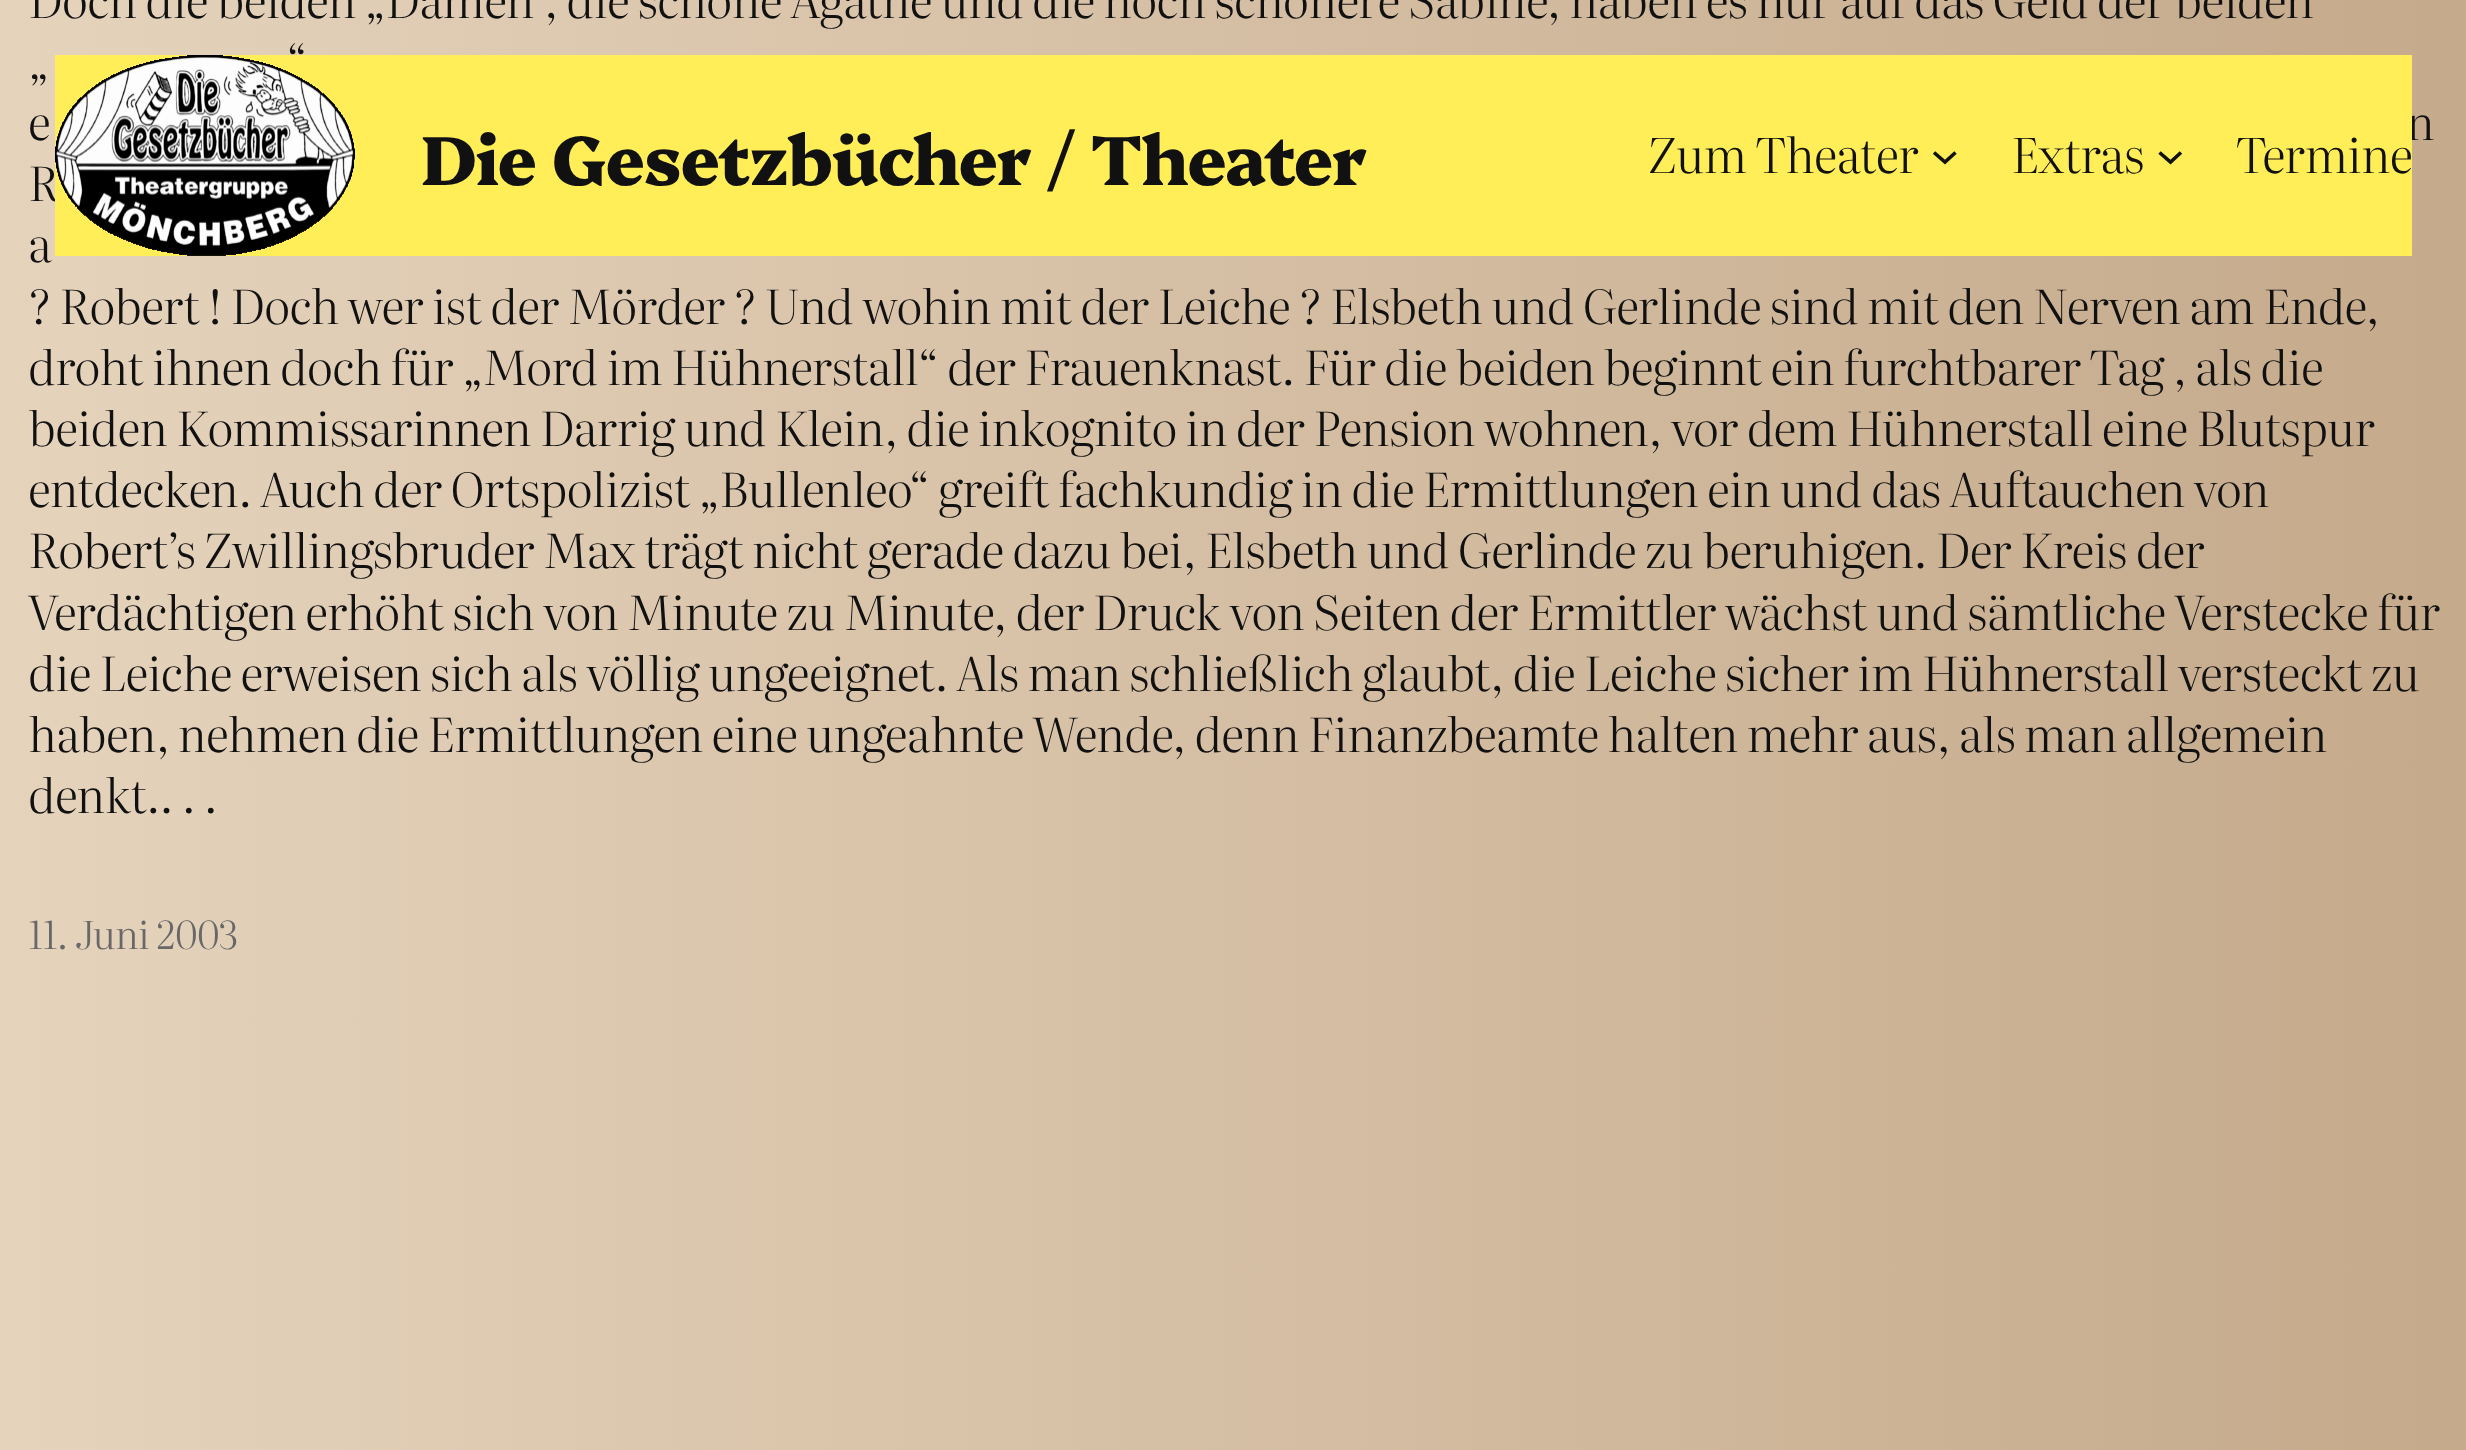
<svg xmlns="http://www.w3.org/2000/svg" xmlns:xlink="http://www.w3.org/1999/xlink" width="2466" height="1450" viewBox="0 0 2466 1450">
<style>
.cls-1{font:300 47.1px Literata;letter-spacing:-0.66px;fill:#111111}
.cls-2{font:300 38.5px Literata;letter-spacing:-0.66px;fill:#686868}
.cls-3{font:800 69.25px Platypi;letter-spacing:-1.65px;fill:#111111}
.cls-4{font:300 48px Literata;letter-spacing:-0.66px;fill:#111111}
</style>
<defs>
<linearGradient id="g1" gradientUnits="userSpaceOnUse" x1="0" y1="447" x2="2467" y2="447"><stop offset="0" stop-color="#e5d3bc"/><stop offset="1" stop-color="#c5aa8b"/></linearGradient>
</defs>
<rect width="100%" height="100%" fill="#ffffff"/>
<rect fill="url(#g1)" x="0" y="0" width="2466" height="1450"/>
<text class="cls-1" x="28" y="18">Doch die beiden „Damen“, die schöne Agathe und die noch schönere Sabine, haben es nur auf das Geld der beiden</text>
<text class="cls-1" x="286" y="79">“</text>
<text class="cls-1"><tspan x="28" y="79">„</tspan><tspan x="28" y="140">e</tspan></text>
<text class="cls-1" x="2406" y="140">n</text>
<text class="cls-1"><tspan x="28" y="201">R</tspan><tspan x="28" y="262">a</tspan><tspan x="28" y="324">? Robert ! Doch wer ist der Mörder ? Und wohin mit der Leiche ? Elsbeth und Gerlinde sind mit den Nerven am Ende,</tspan><tspan x="28" y="385">droht ihnen doch für „Mord im Hühnerstall“ der Frauenknast. Für die beiden beginnt ein furchtbarer Tag , als die</tspan><tspan x="28" y="446">beiden Kommissarinnen Darrig und Klein, die inkognito in der Pension wohnen, vor dem Hühnerstall eine Blutspur</tspan><tspan x="28" y="507">entdecken. Auch der Ortspolizist „Bullenleo“ greift fachkundig in die Ermittlungen ein und das Auftauchen von</tspan><tspan x="28" y="568">Robert’s Zwillingsbruder Max trägt nicht gerade dazu bei, Elsbeth und Gerlinde zu beruhigen. Der Kreis der</tspan><tspan x="28" y="630">Verdächtigen erhöht sich von Minute zu Minute, der Druck von Seiten der Ermittler wächst und sämtliche Verstecke für</tspan><tspan x="28" y="691">die Leiche erweisen sich als völlig ungeeignet. Als man schließlich glaubt, die Leiche sicher im Hühnerstall versteckt zu</tspan><tspan x="28" y="752">haben, nehmen die Ermittlungen eine ungeahnte Wende, denn Finanzbeamte halten mehr aus, als man allgemein</tspan><tspan x="28" y="813">denkt.. . .</tspan></text>
<text class="cls-2" x="28" y="949">11. Juni 2003</text>
<rect fill="#ffee58" x="55" y="55" width="2357" height="201"/>
<image xlink:href="image0.png" x="55" y="55" width="300" height="201"/>
<text class="cls-3" x="421" y="185">Die Gesetzbücher / Theater</text>
<text class="cls-4" x="1648" y="173">Zum Theater</text>
<path fill="none" stroke="#111111" stroke-width="3.6" d="M1934 152.5L1945 162L1955.5 152.5"/>
<text class="cls-4" x="2011" y="173">Extras</text>
<path fill="none" stroke="#111111" stroke-width="3.6" d="M2159.5 152.5L2170.5 162L2181 152.5"/>
<text class="cls-4" x="2236" y="173">Termine</text>
</svg>
